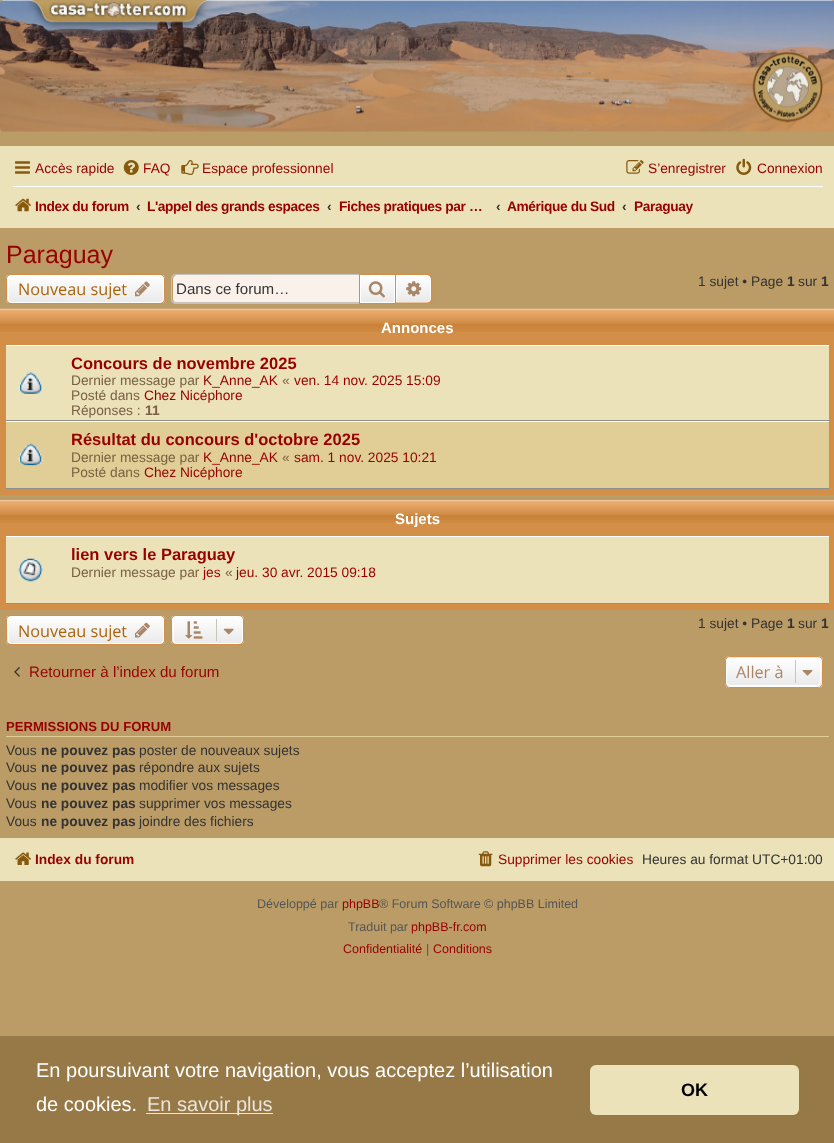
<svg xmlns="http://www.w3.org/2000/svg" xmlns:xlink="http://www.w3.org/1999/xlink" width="834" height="1143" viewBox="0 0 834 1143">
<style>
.cls-1{font:13.75px Liberation Sans;fill:#980000}
.cls-2{font:bold 13.75px Liberation Sans;letter-spacing:-0.4px;fill:#980000}
.cls-3{font:bold 13.75px Liberation Sans;fill:#333333}
.cls-4{font:25px Liberation Sans;fill:#980000}
.cls-5{font:16.25px Open Sans;fill:#aa640b}
.cls-6{font:15.1px Liberation Sans;fill:#333333}
.cls-7{font:13.75px Liberation Sans;fill:#333333}
.cls-8{font:bold 15px Liberation Sans;fill:#ffffff}
.cls-9{font:bold 16.5px Liberation Sans;fill:#980000}
.cls-10{font:13.75px Liberation Sans;fill:#7a6143}
.cls-11{font:bold 13.75px Liberation Sans;fill:#7a6143}
.cls-12{font:15.1px Liberation Sans;fill:#980000}
.cls-13{font:16.25px Open Sans;fill:#aa8668}
.cls-14{font:bold 13.1px Liberation Sans;fill:#980000}
.cls-15{font:bold 13.75px Liberation Sans;fill:#980000}
.cls-16{font:12.5px Liberation Sans;fill:#555555}
.cls-17{font:12.5px Liberation Sans;fill:#980000}
.cls-18{font:20px Liberation Sans;fill:#ffffff}
.cls-19{font:20px Liberation Sans;fill:#eae4da}
.cls-20{font:bold 18px Liberation Sans;fill:#000000}
</style>
<defs>
<clipPath id="clip1"><rect x="6" y="274" width="159" height="30" rx="5"/></clipPath>
<linearGradient id="g1" gradientUnits="userSpaceOnUse" x1="86" y1="275" x2="86" y2="303"><stop offset="0" stop-color="#ffffff"/><stop offset="1" stop-color="#e9e9e9"/></linearGradient>
<linearGradient id="g2" gradientUnits="userSpaceOnUse" x1="378" y1="275" x2="378" y2="303"><stop offset="0" stop-color="#ffffff"/><stop offset="1" stop-color="#e9e9e9"/></linearGradient>
<linearGradient id="g3" gradientUnits="userSpaceOnUse" x1="414" y1="275" x2="414" y2="303"><stop offset="0" stop-color="#ffffff"/><stop offset="1" stop-color="#e9e9e9"/></linearGradient>
<clipPath id="clip2"><rect x="6" y="615" width="159" height="30" rx="5"/></clipPath>
<linearGradient id="g4" gradientUnits="userSpaceOnUse" x1="86" y1="616" x2="86" y2="644"><stop offset="0" stop-color="#ffffff"/><stop offset="1" stop-color="#e9e9e9"/></linearGradient>
<clipPath id="clip3"><rect x="171" y="615" width="73" height="30" rx="5"/></clipPath>
<linearGradient id="g5" gradientUnits="userSpaceOnUse" x1="208" y1="616" x2="208" y2="644"><stop offset="0" stop-color="#ffffff"/><stop offset="1" stop-color="#e9e9e9"/></linearGradient>
<clipPath id="clip4"><rect x="725" y="656" width="98" height="32" rx="5"/></clipPath>
<linearGradient id="g6" gradientUnits="userSpaceOnUse" x1="774" y1="629" x2="774" y2="658"><stop offset="0" stop-color="#ffffff"/><stop offset="1" stop-color="#e9e9e9"/></linearGradient>
<linearGradient id="g7" gradientUnits="userSpaceOnUse" x1="774" y1="658" x2="774" y2="686"><stop offset="0" stop-color="#ffffff"/><stop offset="1" stop-color="#e9e9e9"/></linearGradient>
<linearGradient id="g8" gradientUnits="userSpaceOnUse" x1="774" y1="686" x2="774" y2="715"><stop offset="0" stop-color="#ffffff"/><stop offset="1" stop-color="#e9e9e9"/></linearGradient>
</defs>
<rect width="100%" height="100%" fill="#bb9c66"/>
<image xlink:href="image0.png" x="0" y="0" width="834" height="132"/>
<rect fill="#ebe2b9" x="0" y="146" width="834" height="82"/>
<image xlink:href="image1.png" x="15" y="161" width="15" height="13"/>
<image xlink:href="image2.png" x="123" y="160" width="16" height="15"/>
<image xlink:href="image3.png" x="181" y="160" width="18" height="15"/>
<image xlink:href="image4.png" x="626" y="160" width="18" height="14"/>
<image xlink:href="image5.png" x="736" y="158" width="16" height="17"/>
<rect fill="#ffffff" x="13" y="186" width="810" height="1"/>
<image xlink:href="image6.png" x="15" y="198" width="16" height="14"/>
<g clip-path="url(#clip1)">
<rect fill="url(#g1)" x="6" y="275" width="159" height="28"/>
</g>
<rect fill="none" stroke="#ffffff" x="8.5" y="275.5" width="155" height="27" rx="3.5"/>
<rect fill="none" stroke="#d38e48" x="6.5" y="274.5" width="158" height="29" rx="4.5"/>
<image xlink:href="image7.png" x="135" y="281" width="15" height="16"/>
<path fill="#faf2ea" d="M177 275H359V303H177C175 303 173 301 173 299V279C173 277 175 275 177 275Z"/>
<path fill="#c7c3bf" fill-rule="evenodd" d="M176 274H359V304H176C173 304 171 302 171 299V279C171 276 173 274 176 274ZM176 275H359V302H176C174 302 172 301 172 299V279C172 277 174 275 176 275Z"/>
<rect fill="url(#g2)" x="361" y="276" width="33" height="26"/>
<rect fill="none" stroke="#ffffff" x="360.5" y="275.5" width="34" height="27"/>
<rect fill="none" stroke="#d38e48" x="359.5" y="274.5" width="36" height="29"/>
<image xlink:href="image8.png" x="368" y="281" width="17" height="17"/>
<path fill="url(#g3)" stroke="#ffffff" d="M396.5 275.5H427C429 275.5 430.5 277 430.5 279V299C430.5 301 429 302.5 427 302.5H396.5Z"/>
<path fill="#d38e48" fill-rule="evenodd" d="M396 274H427.5C430.5 274 432.5 276 432.5 279V299C432.5 301.5 430.5 304 427.5 304H396ZM396 275H427.5C429.5 275 431 276.5 431 279V299C431 301 429.5 302.5 427.5 302.5H396Z"/>
<image xlink:href="image9.png" x="406" y="281" width="16" height="16"/>
<rect fill="#d38e48" x="0" y="332" width="834" height="163"/>
<image xlink:href="image10.png" x="0" y="308" width="834" height="24"/>
<rect fill="#ebe2b9" x="6" y="346" width="823" height="74"/>
<rect fill="#ffffff" x="6" y="345" width="823" height="1"/>
<rect fill="#8f8f8f" x="6" y="420" width="823" height="1"/>
<image xlink:href="image11.png" x="18" y="372" width="25" height="22"/>
<rect fill="#e0ce96" x="6" y="422" width="823" height="66"/>
<rect fill="#ffffff" x="6" y="421" width="823" height="1"/>
<rect fill="#8f8f8f" x="6" y="488" width="823" height="1"/>
<image xlink:href="image12.png" x="18" y="443" width="25" height="23"/>
<rect fill="#d38e48" x="0" y="523" width="834" height="87"/>
<image xlink:href="image13.png" x="0" y="500" width="834" height="23"/>
<rect fill="#ebe2b9" x="6" y="537" width="823" height="66"/>
<rect fill="#ffffff" x="6" y="536" width="823" height="1"/>
<rect fill="#8f8f8f" x="6" y="603" width="823" height="1"/>
<image xlink:href="image14.png" x="18" y="558" width="25" height="24"/>
<g clip-path="url(#clip2)">
<rect fill="url(#g4)" x="6" y="616" width="159" height="28"/>
</g>
<rect fill="none" stroke="#ffffff" x="8.5" y="616.5" width="155" height="27" rx="3.5"/>
<rect fill="none" stroke="#d38e48" x="6.5" y="615.5" width="158" height="29" rx="4.5"/>
<image xlink:href="image15.png" x="135" y="622" width="15" height="16"/>
<g clip-path="url(#clip3)">
<rect fill="url(#g5)" x="171" y="616" width="73" height="28"/>
</g>
<rect fill="none" stroke="#ffffff" x="173.5" y="616.5" width="69" height="27" rx="3.5"/>
<rect fill="none" stroke="#d38e48" x="171.5" y="615.5" width="72" height="29" rx="4.5"/>
<image xlink:href="image16.png" x="185" y="621" width="18" height="18"/>
<rect fill="#c7c3bf" x="216" y="619" width="1" height="22"/>
<image xlink:href="image17.png" x="223" y="628" width="11" height="7"/>
<image xlink:href="image18.png" x="14" y="667" width="6" height="10"/>
<g clip-path="url(#clip4)">
<rect fill="url(#g6)" x="725" y="656" width="98" height="2"/>
<rect fill="url(#g7)" x="725" y="658" width="98" height="28"/>
<rect fill="url(#g8)" x="725" y="686" width="98" height="2"/>
</g>
<rect fill="none" stroke="#ffffff" x="726.5" y="658.5" width="94" height="27" rx="3.5"/>
<rect fill="none" stroke="#d38e48" x="725.5" y="656.5" width="97" height="31" rx="4.5"/>
<rect fill="#c7c3bf" x="795" y="660" width="1" height="23"/>
<image xlink:href="image19.png" x="802" y="670" width="11" height="6"/>
<rect fill="#e0ce96" x="6" y="736" width="823" height="1"/>
<rect fill="#ebe2b9" x="0" y="838" width="834" height="43"/>
<image xlink:href="image20.png" x="15" y="852" width="16" height="13"/>
<image xlink:href="image21.png" x="478" y="851" width="15" height="16"/>
<rect fill="#967947" x="0" y="1036" width="834" height="107"/>
<rect fill="#eae4da" x="146" y="1113" width="127" height="1"/>
<rect fill="#ebe2b9" x="590" y="1065" width="209" height="50" rx="6"/>
<text class="cls-1" x="35" y="173">Accès rapide</text>
<text class="cls-1" x="143" y="173">FAQ</text>
<text class="cls-1" x="202" y="173">Espace professionnel</text>
<text class="cls-1" x="648" y="173">S’enregistrer</text>
<text class="cls-1" x="757" y="173">Connexion</text>
<text class="cls-2" x="35" y="211">Index du forum</text>
<text class="cls-3" x="136" y="211">‹</text>
<text class="cls-2" x="147" y="211">L'appel des grands espaces</text>
<text class="cls-3" x="327" y="211">‹</text>
<text class="cls-2" x="339" y="211">Fiches pratiques par …</text>
<text class="cls-3" x="496" y="211">‹</text>
<text class="cls-2" x="507" y="211">Amérique du Sud</text>
<text class="cls-3" x="622" y="211">‹</text>
<text class="cls-2" x="634" y="211">Paraguay</text>
<text class="cls-4" x="6" y="263">Paraguay</text>
<text class="cls-5" x="18" y="295">Nouveau sujet</text>
<text class="cls-6" x="176" y="294">Dans ce forum…</text>
<text class="cls-7" x="698" y="286">1 sujet • Page</text>
<text class="cls-3" x="787" y="286">1</text>
<text class="cls-7" x="798" y="286">sur</text>
<text class="cls-3" x="821" y="286">1</text>
<text class="cls-8" x="381" y="333">Annonces</text>
<text class="cls-9" x="71" y="369">Concours de novembre 2025</text>
<text class="cls-10" x="71" y="385">Dernier message par</text>
<text class="cls-1" x="203" y="385">K_Anne_AK</text>
<text class="cls-10" x="282" y="385">«</text>
<text class="cls-1" x="294" y="385">ven. 14 nov. 2025 15:09</text>
<text class="cls-10" x="71" y="400">Posté dans</text>
<text class="cls-1" x="144" y="400">Chez Nicéphore</text>
<text class="cls-10" x="71" y="415">Réponses :</text>
<text class="cls-11" x="145" y="415">11</text>
<text class="cls-9" x="71" y="445">Résultat du concours d'octobre 2025</text>
<text class="cls-10" x="71" y="462">Dernier message par</text>
<text class="cls-1" x="203" y="462">K_Anne_AK</text>
<text class="cls-10" x="282" y="462">«</text>
<text class="cls-1" x="294" y="462">sam. 1 nov. 2025 10:21</text>
<text class="cls-10" x="71" y="477">Posté dans</text>
<text class="cls-1" x="144" y="477">Chez Nicéphore</text>
<text class="cls-8" x="395" y="524">Sujets</text>
<text class="cls-9" x="71" y="560">lien vers le Paraguay</text>
<text class="cls-10" x="71" y="577">Dernier message par</text>
<text class="cls-1" x="203" y="577">jes</text>
<text class="cls-10" x="225" y="577">«</text>
<text class="cls-1" x="236" y="577">jeu. 30 avr. 2015 09:18</text>
<text class="cls-5" x="18" y="637">Nouveau sujet</text>
<text class="cls-7" x="698" y="628">1 sujet • Page</text>
<text class="cls-3" x="787" y="628">1</text>
<text class="cls-7" x="798" y="628">sur</text>
<text class="cls-3" x="821" y="628">1</text>
<text class="cls-12" x="29" y="677">Retourner à l’index du forum</text>
<text class="cls-13" x="736" y="678">Aller à</text>
<text class="cls-14" x="6" y="731">PERMISSIONS DU FORUM</text>
<text class="cls-7" x="6" y="755">Vous</text>
<text class="cls-3" x="41" y="755">ne pouvez pas</text>
<text class="cls-7" x="139" y="755">poster de nouveaux sujets</text>
<text class="cls-7" x="6" y="772">Vous</text>
<text class="cls-3" x="41" y="772">ne pouvez pas</text>
<text class="cls-7" x="139" y="772">répondre aux sujets</text>
<text class="cls-7" x="6" y="790">Vous</text>
<text class="cls-3" x="41" y="790">ne pouvez pas</text>
<text class="cls-7" x="139" y="790">modifier vos messages</text>
<text class="cls-7" x="6" y="808">Vous</text>
<text class="cls-3" x="41" y="808">ne pouvez pas</text>
<text class="cls-7" x="139" y="808">supprimer vos messages</text>
<text class="cls-7" x="6" y="826">Vous</text>
<text class="cls-3" x="41" y="826">ne pouvez pas</text>
<text class="cls-7" x="139" y="826">joindre des fichiers</text>
<text class="cls-15" x="35" y="864">Index du forum</text>
<text class="cls-1" x="498" y="864">Supprimer les cookies</text>
<text class="cls-7" x="642" y="864">Heures au format UTC+01:00</text>
<text class="cls-16" x="257" y="908">Développé par</text>
<text class="cls-17" x="342" y="908">phpBB</text>
<text class="cls-16" x="379" y="908">® Forum Software © phpBB Limited</text>
<text class="cls-16" x="348" y="931">Traduit par</text>
<text class="cls-17" x="411" y="931">phpBB-fr.com</text>
<text class="cls-17" x="343" y="953">Confidentialité</text>
<text class="cls-16" x="426" y="953">|</text>
<text class="cls-17" x="433" y="953">Conditions</text>
<text class="cls-18"><tspan x="36" y="1077">En poursuivant votre navigation, vous acceptez l’utilisation</tspan><tspan x="36" y="1111">de cookies.</tspan></text>
<text class="cls-19" x="147" y="1111">En savoir plus</text>
<text class="cls-20" x="681" y="1096">OK</text>
</svg>
